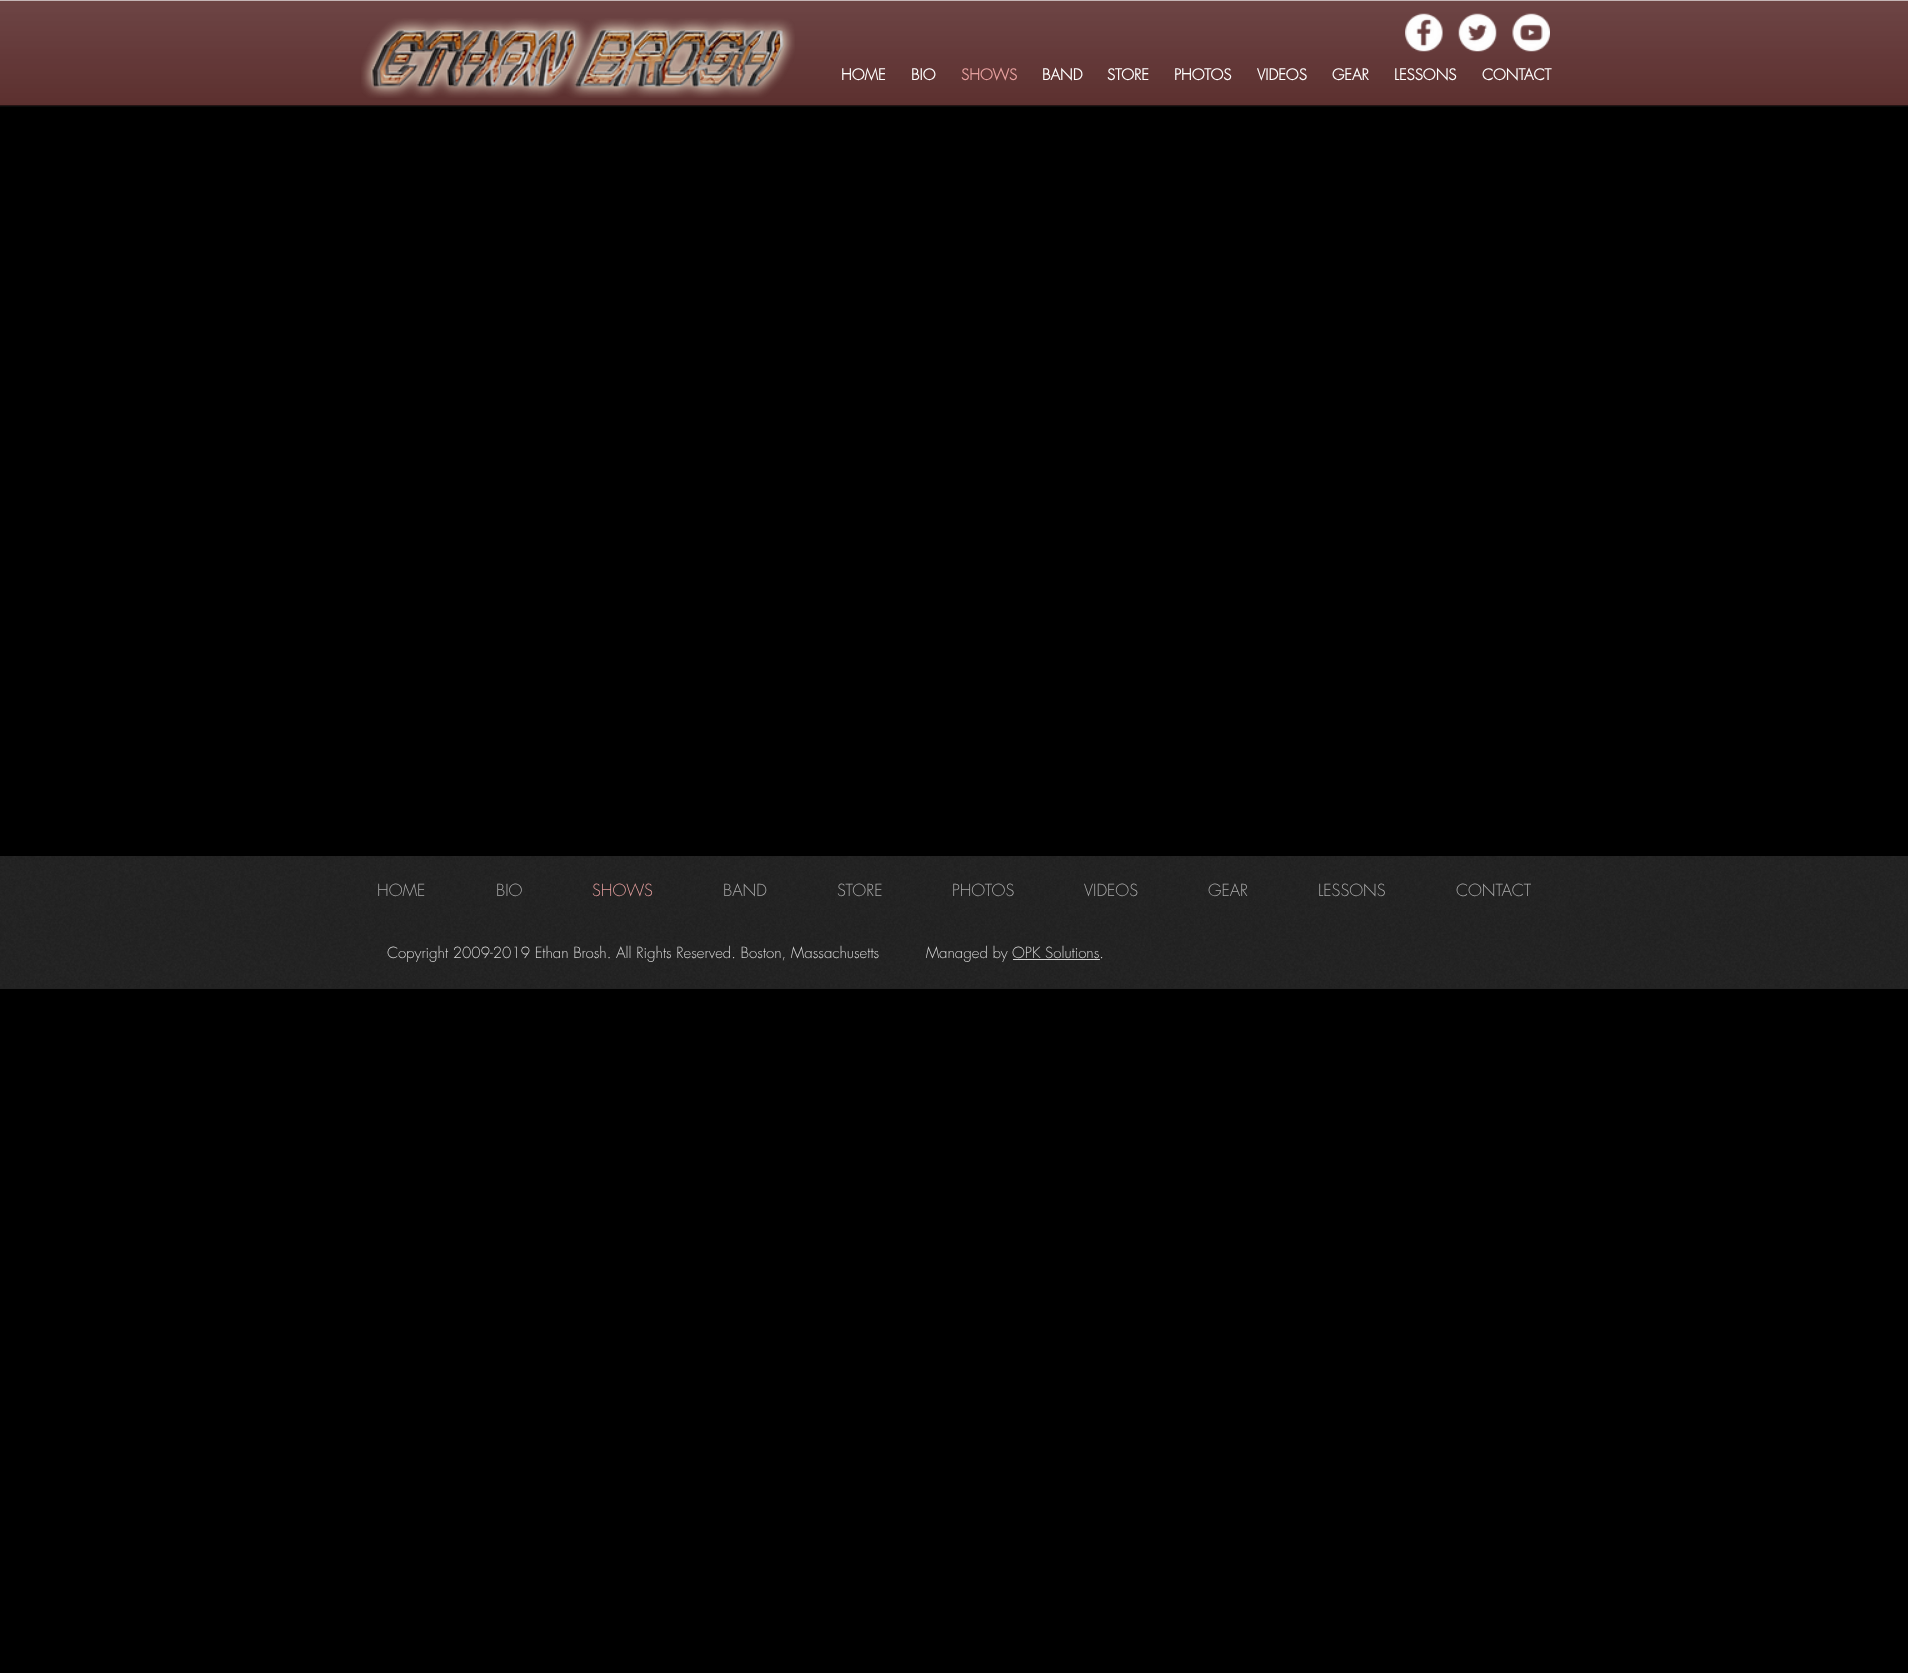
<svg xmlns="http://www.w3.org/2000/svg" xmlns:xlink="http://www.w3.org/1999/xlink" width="1908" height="1673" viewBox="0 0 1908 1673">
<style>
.cls-1{font:bold 15px futura;fill:#ffffff}
.cls-2{font:bold 15px futura;fill:#e59f9e}
.cls-3{font:300 16.25px futura;fill:#aaaaaa}
.cls-4{font:300 16.25px futura;fill:#e59f9e}
.cls-5{font:300 15px futura;fill:#d4d4d4}
</style>
<rect width="100%" height="100%" fill="#000000"/>
<rect fill="#3b0504" x="0" y="1" width="1908" height="104"/>
<image xlink:href="image0.png" x="0" y="1" width="1908" height="106"/>
<rect fill="#251313" x="0" y="105" width="1908" height="1"/>
<rect fill="#c5b5b5" x="0" y="0" width="1908" height="1"/>
<image xlink:href="image1.png" x="361" y="18" width="434" height="80"/>
<image xlink:href="image2.png" x="1405" y="13" width="38" height="39"/>
<image xlink:href="image3.png" x="1458" y="13" width="39" height="39"/>
<image xlink:href="image4.png" x="1512" y="13" width="38" height="39"/>
<rect fill="#222222" x="0" y="856" width="1908" height="133"/>
<image xlink:href="image5.png" x="0" y="856" width="1907" height="132"/>
<rect fill="#d4d4d4" x="1013" y="959" width="87" height="1"/>
<text class="cls-1" x="841" y="80">HOME</text>
<text class="cls-1" x="911" y="80">BIO</text>
<text class="cls-2" x="961" y="80">SHOWS</text>
<text class="cls-1" x="1042" y="80">BAND</text>
<text class="cls-1" x="1107" y="80">STORE</text>
<text class="cls-1" x="1174" y="80">PHOTOS</text>
<text class="cls-1" x="1257" y="80">VIDEOS</text>
<text class="cls-1" x="1332" y="80">GEAR</text>
<text class="cls-1" x="1394" y="80">LESSONS</text>
<text class="cls-1" x="1482" y="80">CONTACT</text>
<text class="cls-3" x="377" y="896">HOME</text>
<text class="cls-3" x="496" y="896">BIO</text>
<text class="cls-4" x="592" y="896">SHOWS</text>
<text class="cls-3" x="723" y="896">BAND</text>
<text class="cls-3" x="837" y="896">STORE</text>
<text class="cls-3" x="952" y="896">PHOTOS</text>
<text class="cls-3" x="1084" y="896">VIDEOS</text>
<text class="cls-3" x="1208" y="896">GEAR</text>
<text class="cls-3" x="1318" y="896">LESSONS</text>
<text class="cls-3" x="1456" y="896">CONTACT</text>
<text class="cls-5" xml:space="preserve" x="387" y="958">Copyright 2009-2019 Ethan Brosh. All Rights Reserved. Boston, Massachusetts          Managed by</text>
<text class="cls-5" x="1012" y="958">OPK Solutions.</text>
</svg>
